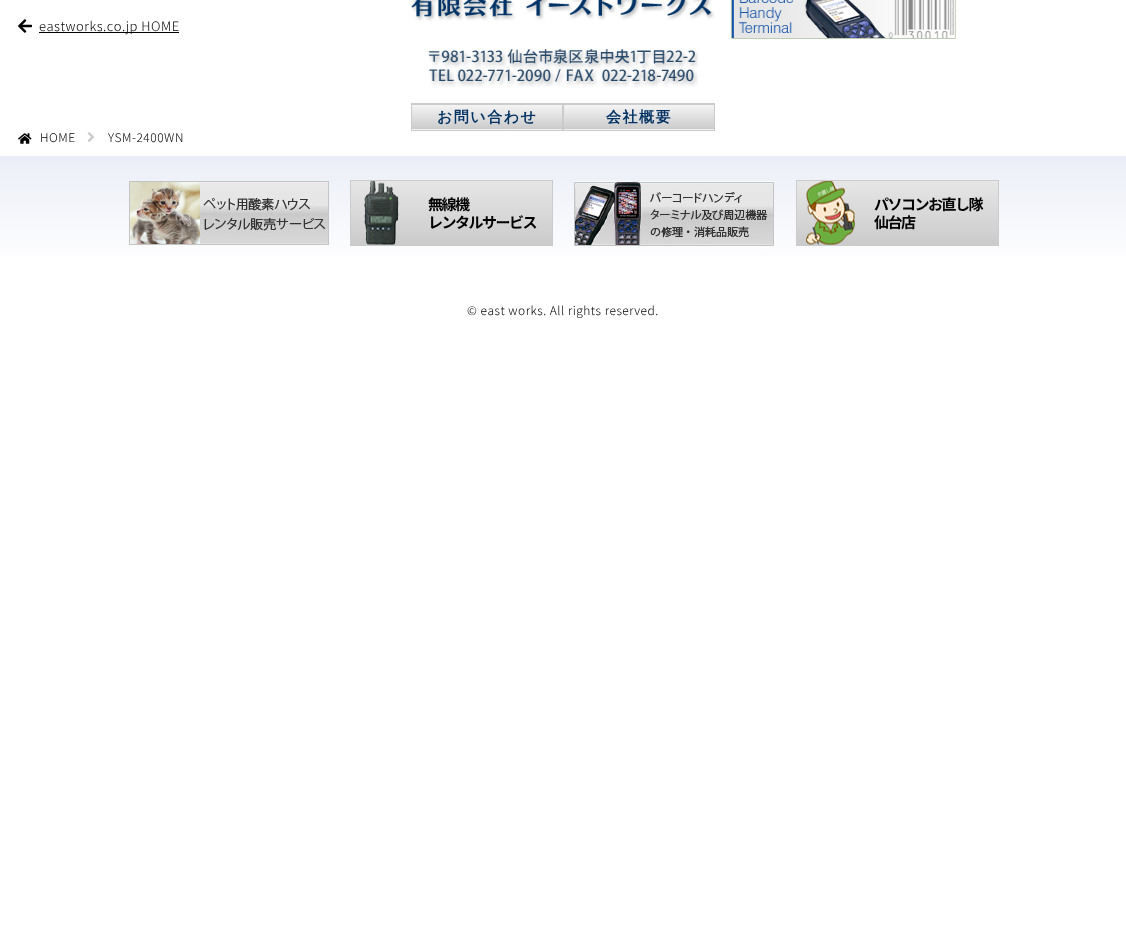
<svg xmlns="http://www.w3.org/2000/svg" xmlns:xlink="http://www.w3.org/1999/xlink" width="1126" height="939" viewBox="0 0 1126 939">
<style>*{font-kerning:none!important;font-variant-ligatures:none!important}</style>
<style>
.cls-1{font:300 13px Noto Sans JP;letter-spacing:0.5px;fill:#000000}
.cls-2{font:bold 15px WenQuanYi Zen Hei;letter-spacing:1.5px;fill:#023263}
.cls-3{font:300 12px Noto Sans JP;letter-spacing:0.5px;fill:#000000}
.cls-4{font:bold 15px Noto Sans JP;letter-spacing:-1.5px;fill:#000000}
</style>
<defs>
<linearGradient id="g1" gradientUnits="userSpaceOnUse" x1="487" y1="81" x2="487" y2="105"><stop offset="0" stop-color="#f4f4f4"/><stop offset="1" stop-color="#cbcbcb"/></linearGradient>
<linearGradient id="g2" gradientUnits="userSpaceOnUse" x1="487" y1="105" x2="487" y2="129"><stop offset="0" stop-color="#f4f4f4"/><stop offset="1" stop-color="#cbcbcb"/></linearGradient>
<linearGradient id="g3" gradientUnits="userSpaceOnUse" x1="487" y1="129" x2="487" y2="153"><stop offset="0" stop-color="#f4f4f4"/><stop offset="1" stop-color="#cbcbcb"/></linearGradient>
<linearGradient id="g4" gradientUnits="userSpaceOnUse" x1="639" y1="81" x2="639" y2="105"><stop offset="0" stop-color="#f4f4f4"/><stop offset="1" stop-color="#cbcbcb"/></linearGradient>
<linearGradient id="g5" gradientUnits="userSpaceOnUse" x1="639" y1="105" x2="639" y2="129"><stop offset="0" stop-color="#f4f4f4"/><stop offset="1" stop-color="#cbcbcb"/></linearGradient>
<linearGradient id="g6" gradientUnits="userSpaceOnUse" x1="639" y1="129" x2="639" y2="153"><stop offset="0" stop-color="#f4f4f4"/><stop offset="1" stop-color="#cbcbcb"/></linearGradient>
<linearGradient id="g7" gradientUnits="userSpaceOnUse" x1="563" y1="156" x2="563" y2="270"><stop offset="0" stop-color="#ebeef7"/><stop offset="1" stop-color="#ffffff"/></linearGradient>
<linearGradient id="g8" gradientUnits="userSpaceOnUse" x1="452" y1="181" x2="452" y2="245"><stop offset="0" stop-color="#e6e6e6"/><stop offset="1" stop-color="#cbcbcb"/></linearGradient>
<linearGradient id="g9" gradientUnits="userSpaceOnUse" x1="898" y1="181" x2="898" y2="245"><stop offset="0" stop-color="#e6e6e6"/><stop offset="1" stop-color="#cbcbcb"/></linearGradient>
</defs>
<rect width="100%" height="100%" fill="#ffffff"/>
<image xlink:href="image0.png" x="18" y="19" width="14" height="14"/>
<rect fill="#000000" x="39" y="32" width="140" height="1"/>
<image xlink:href="image1.png" x="411" y="0" width="304" height="21"/>
<image xlink:href="image2.png" x="730" y="0" width="226" height="39"/>
<image xlink:href="image3.png" x="428" y="49" width="270" height="38"/>
<rect fill="none" stroke="#cbcbcb" x="411.5" y="103.5" width="151" height="27"/>
<rect fill="url(#g1)" x="412" y="104" width="150" height="1"/>
<rect fill="url(#g2)" x="412" y="105" width="150" height="24"/>
<rect fill="url(#g3)" x="412" y="129" width="150" height="1"/>
<rect fill="none" stroke="#cbcbcb" x="563.5" y="103.5" width="151" height="27"/>
<rect fill="url(#g4)" x="564" y="104" width="150" height="1"/>
<rect fill="url(#g5)" x="564" y="105" width="150" height="24"/>
<rect fill="url(#g6)" x="564" y="129" width="150" height="1"/>
<image xlink:href="image4.png" x="18" y="133" width="14" height="11"/>
<image xlink:href="image5.png" x="87" y="132" width="7" height="10"/>
<rect fill="url(#g7)" x="0" y="156" width="1126" height="100"/>
<image xlink:href="image6.png" x="129" y="181" width="200" height="64"/>
<rect fill="url(#g8)" x="351" y="181" width="201" height="64"/>
<rect fill="none" stroke="#cbcbcb" x="350.5" y="180.5" width="202" height="65"/>
<image xlink:href="image7.png" x="364" y="181" width="35" height="64"/>
<image xlink:href="image8.png" x="574" y="181" width="200" height="65"/>
<rect fill="url(#g9)" x="797" y="181" width="201" height="64"/>
<rect fill="none" stroke="#cbcbcb" x="796.5" y="180.5" width="202" height="65"/>
<image xlink:href="image9.png" x="806" y="181" width="49" height="64"/>
<text class="cls-1" x="39" y="31">eastworks.co.jp HOME</text>
<text class="cls-2" x="437" y="122">お問い合わせ</text>
<text class="cls-2" x="606" y="122">会社概要</text>
<text class="cls-3" x="40" y="142">HOME</text>
<text class="cls-3" x="108" y="142">YSM-2400WN</text>
<text class="cls-4"><tspan x="428" y="210">無線機</tspan><tspan x="428" y="228">レンタルサービス</tspan></text>
<text class="cls-4"><tspan x="874" y="210">パソコンお直し隊</tspan><tspan x="874" y="228">仙台店</tspan></text>
<text class="cls-3" x="467" y="315">© east works. All rights reserved.</text>
</svg>
